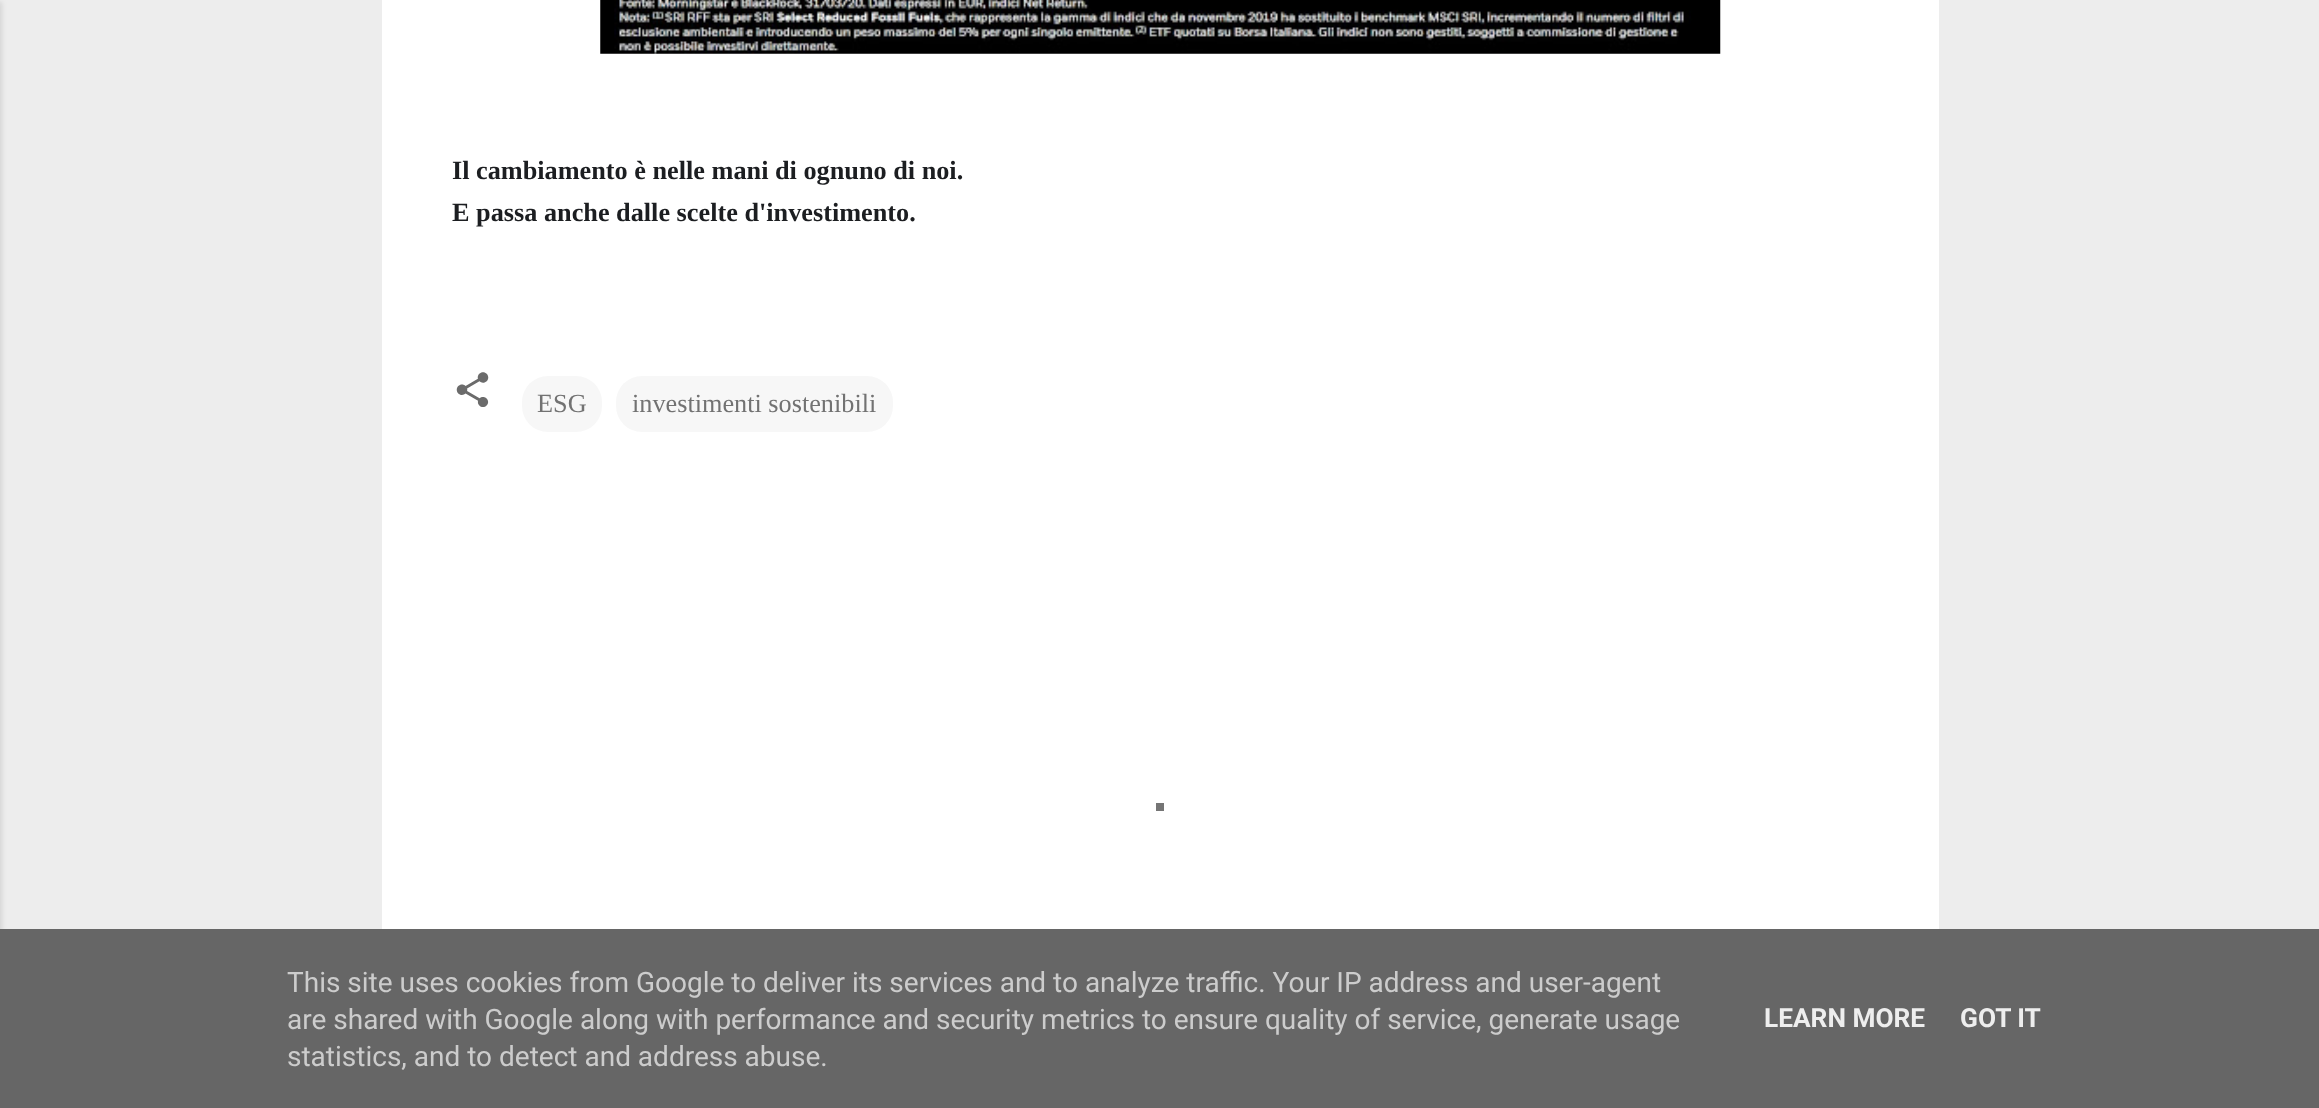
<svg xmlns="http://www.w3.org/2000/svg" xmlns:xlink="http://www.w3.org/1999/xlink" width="2319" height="1108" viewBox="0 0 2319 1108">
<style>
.cls-1{font:bold 26.25px Liberation Serif;fill:#1c1e21}
.cls-2{font:26.25px Liberation Serif;fill:#727272}
.cls-3{font:28px Roboto;fill:#cccccc}
.cls-4{font:bold 26.25px Roboto;fill:#eeeeee}
</style>
<rect width="100%" height="100%" fill="#ededed"/>
<rect fill="#000000" fill-opacity="0.1" filter="blur(2.5px)" x="-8" y="2" width="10" height="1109"/>
<rect fill="#ffffff" x="382" y="0" width="1557" height="929"/>
<image xlink:href="image0.png" x="600" y="0" width="1121" height="54"/>
<image xlink:href="image1.png" x="456" y="372" width="33" height="35"/>
<rect fill="#f7f7f7" x="522" y="376" width="80" height="56" rx="26"/>
<rect fill="#f7f7f7" x="616" y="376" width="277" height="56" rx="26"/>
<rect fill="#757575" x="1156" y="803" width="8" height="8"/>
<rect fill="#666666" x="0" y="929" width="2319" height="179"/>
<text class="cls-1"><tspan x="452" y="179">Il cambiamento è nelle mani di ognuno di noi.</tspan><tspan x="452" y="221">E passa anche dalle scelte d'investimento.</tspan></text>
<text class="cls-2" x="537" y="412">ESG</text>
<text class="cls-2" x="632" y="412">investimenti sostenibili</text>
<text class="cls-3"><tspan x="287" y="992">This site uses cookies from Google to deliver its services and to analyze traffic. Your IP address and user-agent</tspan><tspan x="287" y="1029">are shared with Google along with performance and security metrics to ensure quality of service, generate usage</tspan><tspan x="287" y="1066">statistics, and to detect and address abuse.</tspan></text>
<text class="cls-4" x="1764" y="1027">LEARN MORE</text>
<text class="cls-4" x="1960" y="1027">GOT IT</text>
</svg>
